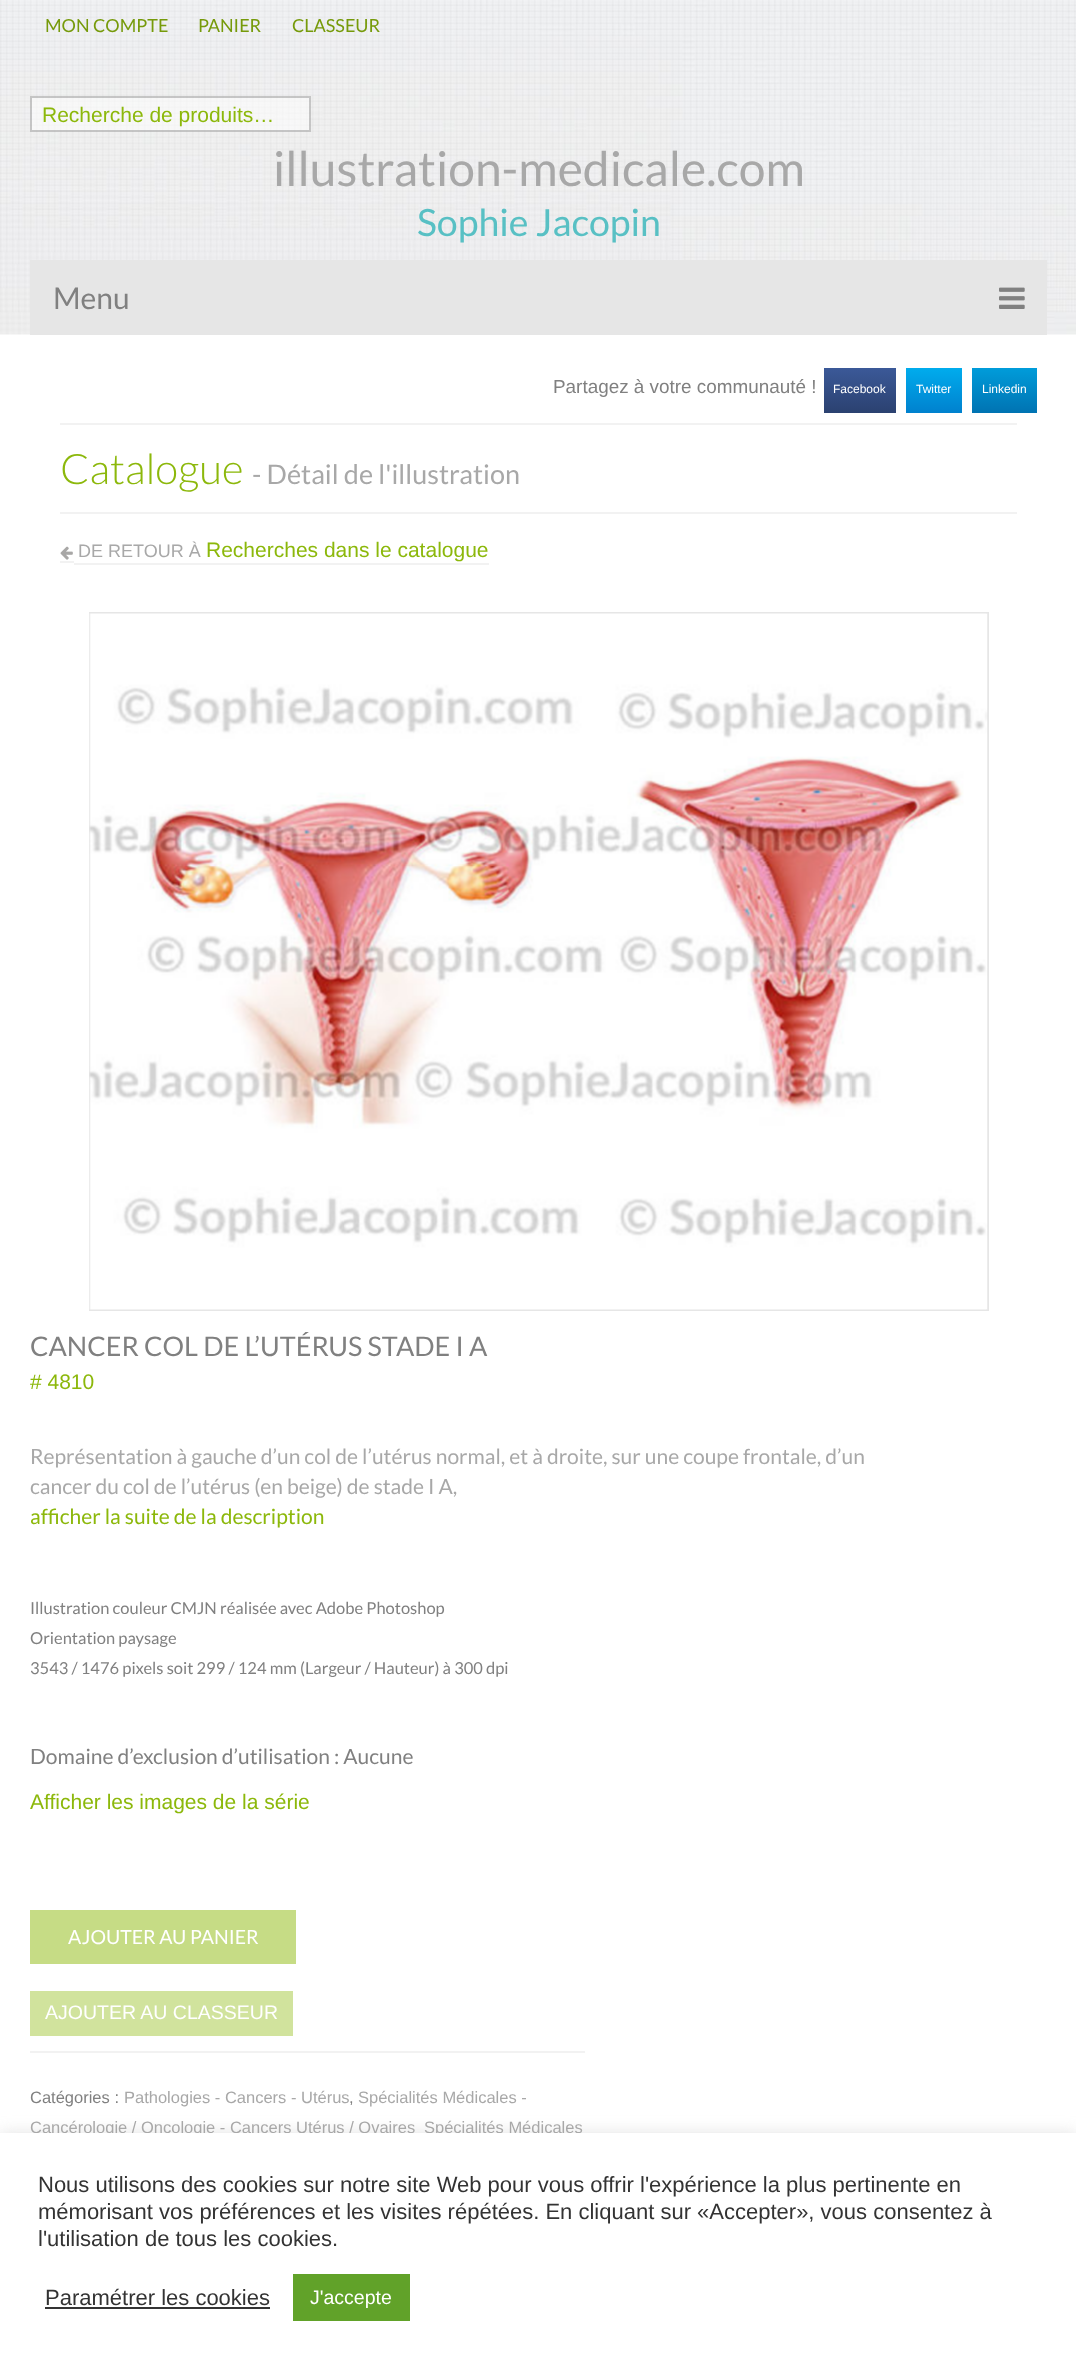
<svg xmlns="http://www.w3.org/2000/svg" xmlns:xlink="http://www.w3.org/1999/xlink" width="1076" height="2365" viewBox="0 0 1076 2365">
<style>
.cls-1{font:18px Lato;fill:#769a0a}
.cls-2{font:21px Liberation Sans;fill:#8cb80b}
.cls-3{font:48px Lato;fill:#a8a8a8}
.cls-4{font:37.5px Lato;fill:#58c0c4}
.cls-5{font:30px Lato;fill:#808080}
.cls-6{font:18.9px Liberation Sans;fill:#808080}
.cls-7{font:12px Liberation Sans;fill:#ffffff}
.cls-8{font:300 42px Lato;fill:#8cb80b}
.cls-9{font:27px Lato;fill:#a8a8a8}
.cls-10{font:18px Liberation Sans;fill:#a8a8a8}
.cls-11{font:27px Lato;fill:#808080}
.cls-12{font:21px Lato;fill:#a8a8a8}
.cls-13{font:21px Lato;fill:#8cb80b}
.cls-14{font:16.5px Lato;fill:#808080}
.cls-15{font:21px Lato;fill:#808080}
.cls-16{font:19.5px Lato;fill:#ffffff}
.cls-17{font:19.5px Liberation Sans;fill:#ffffff}
.cls-18{font:16.5px Liberation Sans;fill:#808080}
.cls-19{font:16.5px Liberation Sans;fill:#a8a8a8}
.cls-20{font:22px Liberation Sans;fill:#333333}
</style>
<defs>
<linearGradient id="g1" gradientUnits="userSpaceOnUse" x1="860" y1="368" x2="860" y2="413"><stop offset="0" stop-color="#3b5998"/><stop offset="1" stop-color="#2b4170"/></linearGradient>
<linearGradient id="g2" gradientUnits="userSpaceOnUse" x1="934" y1="368" x2="934" y2="413"><stop offset="0" stop-color="#00aced"/><stop offset="1" stop-color="#0081ce"/></linearGradient>
<linearGradient id="g3" gradientUnits="userSpaceOnUse" x1="1004" y1="368" x2="1004" y2="413"><stop offset="0" stop-color="#009cda"/><stop offset="1" stop-color="#0073b2"/></linearGradient>
</defs>
<rect width="100%" height="100%" fill="#ffffff"/>
<image xlink:href="image0.png" x="0" y="0" width="1076" height="335"/>
<rect fill="#ffffff" fill-opacity="0.5" x="30" y="96" width="281" height="36"/>
<rect fill="none" stroke="#000000" stroke-opacity="0.2" stroke-width="2" x="31" y="97" width="279" height="34"/>
<rect fill="#e6e6e6" x="30" y="260" width="1017" height="75"/>
<image xlink:href="image1.png" x="999" y="287" width="26" height="22"/>
<rect fill="url(#g1)" x="824" y="368" width="72" height="45"/>
<rect fill="url(#g2)" x="906" y="368" width="56" height="45"/>
<rect fill="url(#g3)" x="972" y="368" width="65" height="45"/>
<rect fill="#f2f2f2" x="60" y="423" width="957" height="2"/>
<rect fill="#f2f2f2" x="60" y="512" width="957" height="2"/>
<rect fill="#f2f2f2" x="60" y="561" width="14" height="2"/>
<rect fill="#f2f2f2" x="74" y="563" width="415" height="2"/>
<image xlink:href="image2.png" x="60" y="546" width="13" height="14"/>
<rect fill="none" stroke="#e6e6e6" stroke-width="2" x="90" y="613" width="898" height="697"/>
<image xlink:href="image3.png" x="89" y="613" width="899" height="697"/>
<rect fill="#c6dc85" x="30" y="1910" width="266" height="54"/>
<rect fill="#d1e39d" x="30" y="1991" width="263" height="45"/>
<rect fill="#f2f2f2" x="30" y="2051" width="555" height="2"/>
<rect fill="#acabab" fill-opacity="0.3" filter="blur(7.5px)" x="0" y="2132" width="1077" height="232"/>
<text class="cls-1" x="45" y="32">MON COMPTE</text>
<text class="cls-1" x="198" y="32">PANIER</text>
<text class="cls-1" x="292" y="32">CLASSEUR</text>
<text class="cls-2" x="42" y="122">Recherche de produits…</text>
<text class="cls-3" x="273" y="186">illustration-medicale.com</text>
<text class="cls-4" x="417" y="236">Sophie Jacopin</text>
<text class="cls-5" x="53" y="309">Menu</text>
<text class="cls-6" x="553" y="393">Partagez à votre communauté !</text>
<text class="cls-7" x="833" y="393">Facebook</text>
<text class="cls-7" x="916" y="393">Twitter</text>
<text class="cls-7" x="982" y="393">Linkedin</text>
<text class="cls-8" x="60" y="484">Catalogue</text>
<text class="cls-9" x="252" y="484">- Détail de l'illustration</text>
<text class="cls-10" x="78" y="557">DE RETOUR À</text>
<text class="cls-2" x="206" y="557">Recherches dans le catalogue</text>
<text class="cls-11" x="30" y="1356">CANCER COL DE L’UTÉRUS STADE I A</text>
<text class="cls-2" x="30" y="1389"># 4810</text>
<text class="cls-12"><tspan x="30" y="1464">Représentation à gauche d’un col de l’utérus normal, et à droite, sur une coupe frontale, d’un</tspan><tspan x="30" y="1494">cancer du col de l’utérus (en beige) de stade I A,</tspan></text>
<text class="cls-13" x="30" y="1524">afficher la suite de la description</text>
<text class="cls-14"><tspan x="30" y="1614">Illustration couleur CMJN réalisée avec Adobe Photoshop</tspan><tspan x="30" y="1644">Orientation paysage</tspan><tspan x="30" y="1674">3543 / 1476 pixels soit 299 / 124 mm (Largeur / Hauteur) à 300 dpi</tspan></text>
<text class="cls-15" x="30" y="1764">Domaine d’exclusion d’utilisation : Aucune</text>
<text class="cls-2" x="30" y="1809">Afficher les images de la série</text>
<text class="cls-16" x="68" y="1944">AJOUTER AU PANIER</text>
<text class="cls-17" x="45" y="2019">AJOUTER AU CLASSEUR</text>
<text class="cls-18" x="30" y="2103">Catégories :</text>
<text class="cls-19" x="124" y="2103">Pathologies - Cancers - Utérus</text>
<text class="cls-18" x="349" y="2103">,</text>
<text class="cls-19" x="358" y="2103">Spécialités Médicales -</text>
<text class="cls-19" x="30" y="2133">Cancérologie / Oncologie - Cancers Utérus / Ovaires</text>
<text class="cls-19" x="424" y="2133">Spécialités Médicales</text>
<rect fill="#ffffff" x="0" y="2133" width="1076" height="232"/>
<text class="cls-20"><tspan x="38" y="2192">Nous utilisons des cookies sur notre site Web pour vous offrir l'expérience la plus pertinente en</tspan><tspan x="38" y="2219">mémorisant vos préférences et les visites répétées. En cliquant sur «Accepter», vous consentez à</tspan><tspan x="38" y="2246">l'utilisation de tous les cookies.</tspan></text>
<text class="cls-20" x="45" y="2305">Paramétrer les cookies</text>
<rect fill="#333333" x="45" y="2307" width="225" height="2"/>
<rect fill="#61a229" x="293" y="2274" width="117" height="47"/>
<text class="cls-17" x="310" y="2304">J'accepte</text>
</svg>
